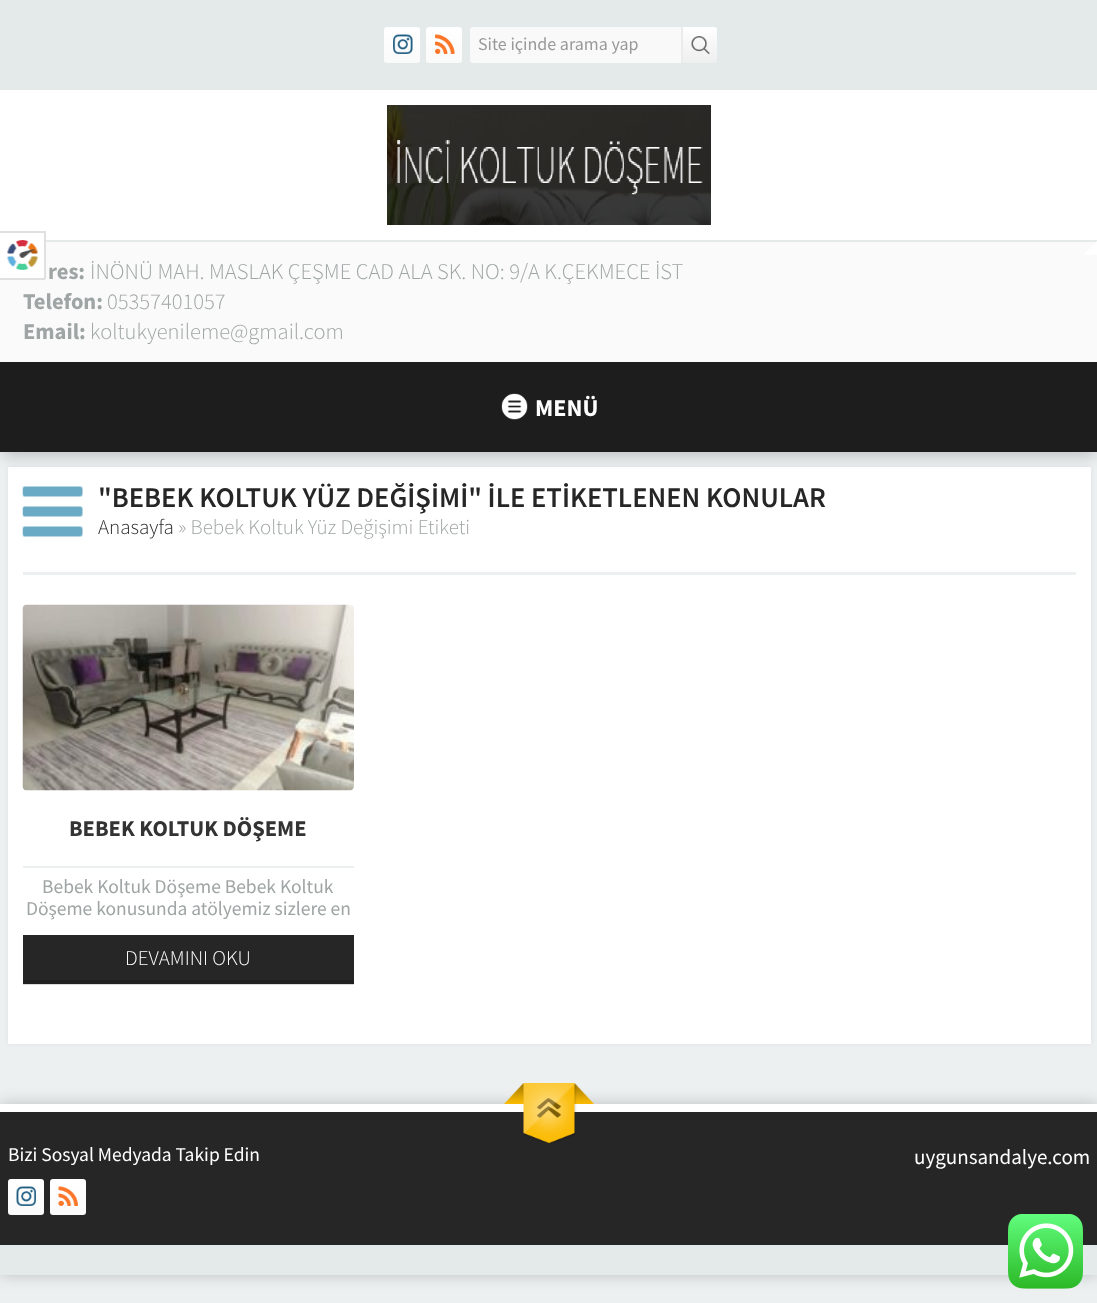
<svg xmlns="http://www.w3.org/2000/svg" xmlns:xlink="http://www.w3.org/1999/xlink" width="1097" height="1303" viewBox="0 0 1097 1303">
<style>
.cls-1{font:18px Source Sans Pro;fill:#999999}
.cls-2{font:bold 22.5px Source Sans Pro;fill:#9fa4a4}
.cls-3{font:300 22.5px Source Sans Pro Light;fill:#9fa4a4}
.cls-4{font:bold 24px Source Sans Pro;fill:#ffffff}
.cls-5{font:600 28.5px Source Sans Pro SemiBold;fill:#262626}
.cls-6{font:300 21px Source Sans Pro Light;fill:#262626}
.cls-7{font:300 21px Source Sans Pro Light;fill:#9fa4a4}
.cls-8{font:bold 22.5px Source Sans Pro;fill:#333333}
.cls-9{font:19.5px Source Sans Pro;fill:#9fa4a4}
.cls-10{font:300 21px Source Sans Pro Light;fill:#ffffff}
.cls-11{font:19.5px Source Sans Pro;fill:#ffffff}
.cls-12{font:21px Source Sans Pro;fill:#ffffff}
</style>
<defs>
<linearGradient id="g1" gradientUnits="userSpaceOnUse" x1="402" y1="63" x2="402" y2="27"><stop offset="0" stop-color="#fafafa"/><stop offset="1" stop-color="#ffffff"/></linearGradient>
<linearGradient id="g2" gradientUnits="userSpaceOnUse" x1="444" y1="63" x2="444" y2="27"><stop offset="0" stop-color="#fafafa"/><stop offset="1" stop-color="#ffffff"/></linearGradient>
<linearGradient id="g3" gradientUnits="userSpaceOnUse" x1="700" y1="27" x2="700" y2="63"><stop offset="0" stop-color="#ffffff"/><stop offset="1" stop-color="#eeeeee"/></linearGradient>
<linearGradient id="g4" gradientUnits="userSpaceOnUse" x1="26" y1="1215" x2="26" y2="1179"><stop offset="0" stop-color="#fafafa"/><stop offset="1" stop-color="#ffffff"/></linearGradient>
<linearGradient id="g5" gradientUnits="userSpaceOnUse" x1="68" y1="1215" x2="68" y2="1179"><stop offset="0" stop-color="#fafafa"/><stop offset="1" stop-color="#ffffff"/></linearGradient>
</defs>
<rect width="100%" height="100%" fill="#ecf0f1"/>
<rect fill="#ffffff" x="0" y="90" width="1097" height="150"/>
<rect fill="#e4e9e9" x="0" y="0" width="1097" height="90"/>
<rect fill="url(#g1)" x="384" y="27" width="36" height="36" rx="3"/>
<image xlink:href="image0.png" x="393" y="34" width="20" height="20"/>
<rect fill="url(#g2)" x="426" y="27" width="36" height="36" rx="3"/>
<image xlink:href="image1.png" x="435" y="34" width="20" height="20"/>
<rect fill="#f9f9f9" x="470" y="27" width="247" height="36" rx="3"/>
<path fill="url(#g3)" d="M681 27H714C715.5 27 717 28.5 717 30V60C717 61.5 715.5 63 714 63H681Z"/>
<rect fill="#ecebeb" x="681" y="27" width="2" height="36"/>
<image xlink:href="image2.png" x="691" y="36" width="19" height="18"/>
<image xlink:href="image3.png" x="387" y="105" width="324" height="120"/>
<rect fill="#000000" fill-opacity="0.06" filter="blur(2px)" x="8" y="467" width="1083" height="577"/>
<rect fill="#ffffff" x="8" y="467" width="1083" height="577"/>
<rect fill="#000000" fill-opacity="0.2" filter="blur(7.5px)" x="3" y="372" width="1092" height="84"/>
<rect fill="#fafafa" x="0" y="242" width="1097" height="120"/>
<rect fill="#e4e9e9" x="46" y="240" width="1051" height="2"/>
<path fill="#ffffff" d="M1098 255H1083L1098 240Z"/>
<rect fill="#ffffff" x="0" y="240" width="44" height="38"/>
<rect fill="#e0e0e0" x="0" y="231" width="45" height="2"/>
<rect fill="#e0e0e0" x="44" y="231" width="2" height="48"/>
<rect fill="#e0e0e0" x="0" y="278" width="45" height="2"/>
<image xlink:href="image4.png" x="7" y="240" width="31" height="30"/>
<rect fill="#1d1d1d" x="0" y="362" width="1097" height="90"/>
<image xlink:href="image5.png" x="501" y="393" width="27" height="27"/>
<rect fill="#d9d9d9" x="23" y="984" width="331" height="1"/>
<rect fill="#ecf0f1" x="23" y="572" width="1053" height="3"/>
<image xlink:href="image6.png" x="22" y="486" width="61" height="51"/>
<image xlink:href="image7.png" x="22" y="604" width="332" height="187"/>
<rect fill="#ecf0f1" x="23" y="866" width="331" height="2"/>
<rect fill="#262626" x="23" y="935" width="331" height="45"/>
<rect fill="#202020" x="23" y="980" width="331" height="4"/>
<rect fill="#000000" fill-opacity="0.2" filter="blur(7.5px)" x="0" y="1104" width="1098" height="171"/>
<rect fill="#262626" x="0" y="1112" width="1097" height="133"/>
<rect fill="#ffffff" x="0" y="1104" width="1097" height="8"/>
<image xlink:href="image8.png" x="504" y="1083" width="90" height="60"/>
<rect fill="url(#g4)" x="8" y="1179" width="36" height="36" rx="3"/>
<image xlink:href="image9.png" x="16" y="1186" width="20" height="20"/>
<rect fill="url(#g5)" x="50" y="1179" width="36" height="36" rx="3"/>
<image xlink:href="image10.png" x="58" y="1186" width="20" height="20"/>
<rect fill="#e4e9e9" x="0" y="1245" width="1097" height="30"/>
<image xlink:href="image11.png" x="1008" y="1214" width="75" height="75"/>
<text class="cls-1" x="478" y="50">Site içinde arama yap</text>
<text class="cls-2" x="48" y="279">res:</text>
<text class="cls-3" x="90" y="279">İNÖNÜ MAH. MASLAK ÇEŞME CAD ALA SK. NO: 9/A K.ÇEKMECE İST</text>
<text class="cls-2" x="23" y="309">Telefon:</text>
<text class="cls-3" x="107" y="309">05357401057</text>
<text class="cls-2" x="23" y="339">Email:</text>
<text class="cls-3" x="90" y="339">koltukyenileme@gmail.com</text>
<text class="cls-4" x="535" y="416">MENÜ</text>
<text class="cls-5" x="98" y="507">"BEBEK KOLTUK YÜZ DEĞİŞİMİ" İLE ETİKETLENEN KONULAR</text>
<text class="cls-6" x="98" y="534">Anasayfa</text>
<text class="cls-7" x="178" y="534">» Bebek Koltuk Yüz Değişimi Etiketi</text>
<text class="cls-8" x="69" y="836">BEBEK KOLTUK DÖŞEME</text>
<text class="cls-9" x="42" y="893">Bebek Koltuk Döşeme Bebek Koltuk</text>
<text class="cls-9" x="26" y="915">Döşeme konusunda atölyemiz sizlere en</text>
<text class="cls-10" x="125" y="965">DEVAMINI OKU</text>
<text class="cls-11" x="8" y="1161">Bizi Sosyal Medyada Takip Edin</text>
<text class="cls-12" x="914" y="1164">uygunsandalye.com</text>
</svg>
